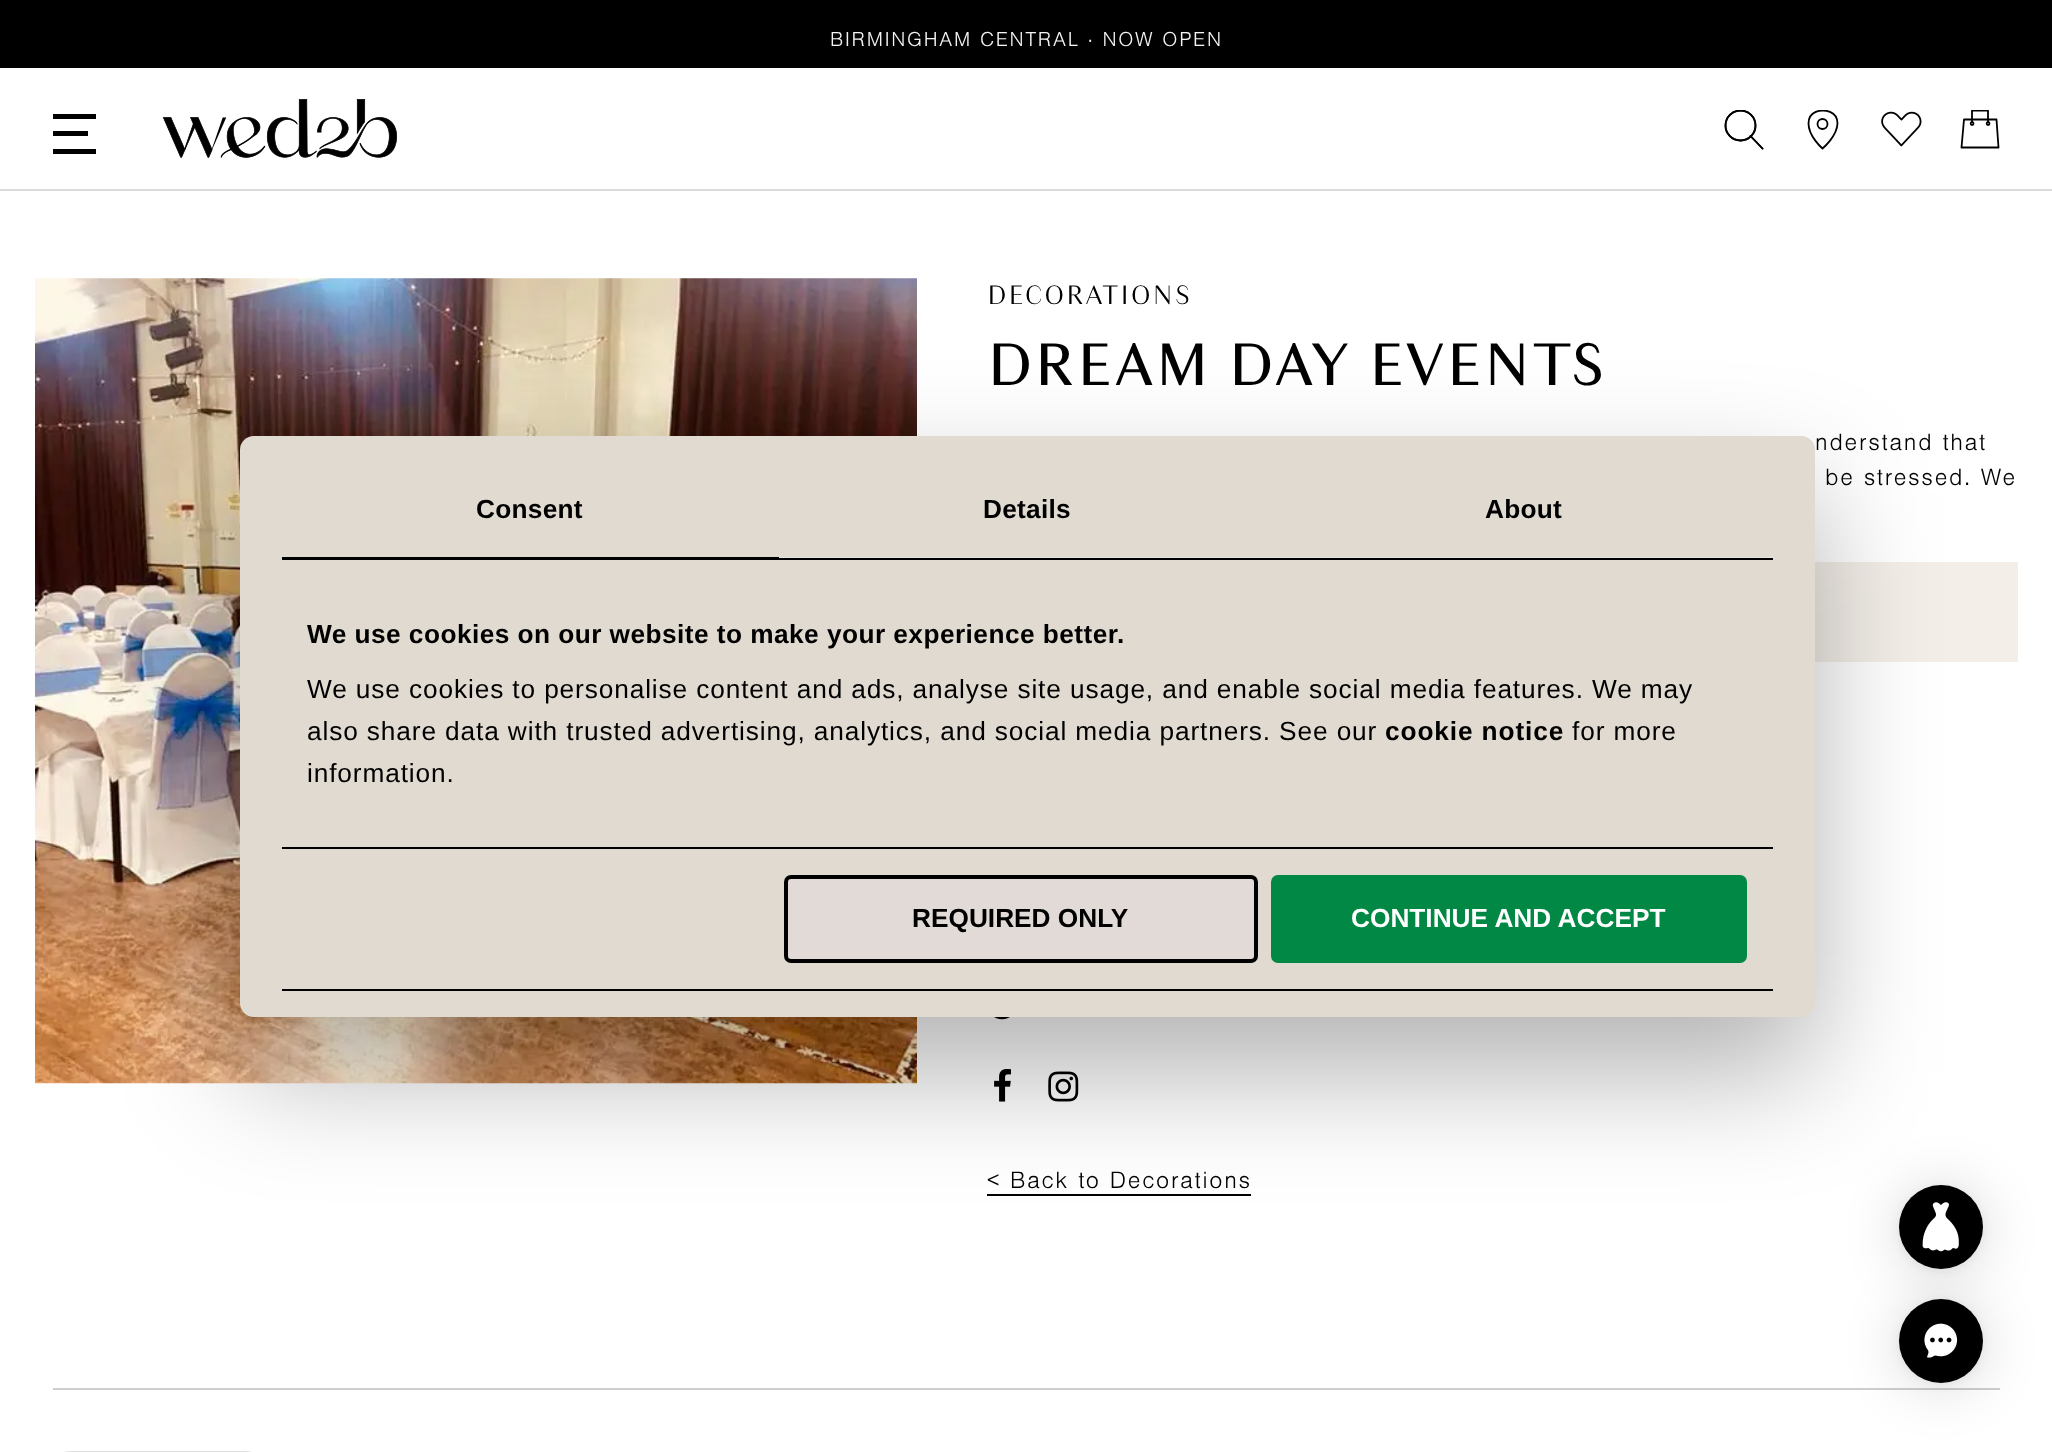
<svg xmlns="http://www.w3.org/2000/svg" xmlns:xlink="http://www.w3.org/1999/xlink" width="2052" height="1452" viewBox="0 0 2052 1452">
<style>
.cls-1{font:21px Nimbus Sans;letter-spacing:1.75px;fill:#f4f4f4}
.cls-2{font:300 28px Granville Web;letter-spacing:1.75px;fill:#000000}
.cls-3{font:63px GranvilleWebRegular;letter-spacing:1.75px;fill:#000000}
.cls-4{font:24.5px Nimbus Sans;letter-spacing:1.75px;fill:#000000}
.cls-5{font:bold 26.25px Liberation Sans;letter-spacing:0.25px;fill:#000000}
.cls-6{font:bold 26.25px Liberation Sans;letter-spacing:0.45px;fill:#000000}
.cls-7{font:26.25px Liberation Sans;letter-spacing:0.88px;fill:#000000}
.cls-8{font:bold 26.25px Liberation Sans;letter-spacing:0.88px;fill:#000000}
.cls-9{font:bold 26.25px Liberation Sans;fill:#000000}
.cls-10{font:bold 26.25px Liberation Sans;fill:#ffffff}
</style>
<defs>
<clipPath id="clip1"><rect x="1724" y="110" width="40" height="41"/></clipPath>
<clipPath id="clip2"><rect x="1803" y="110" width="40" height="41"/></clipPath>
<clipPath id="clip3"><rect x="1960" y="110" width="40" height="41"/></clipPath>
</defs>
<rect width="100%" height="100%" fill="#ffffff"/>
<rect fill="#000000" x="0" y="0" width="2052" height="68"/>
<rect fill="#dcdbdb" x="0" y="189" width="2052" height="2"/>
<rect fill="#000000" x="53" y="114" width="43" height="5"/>
<rect fill="#000000" x="53" y="131" width="35" height="5"/>
<rect fill="#000000" x="53" y="149" width="43" height="5"/>
<image xlink:href="image0.png" x="162" y="99" width="236" height="59"/>
<g clip-path="url(#clip1)">
<circle fill="none" stroke="#000000" stroke-width="1.8" cx="1740.5" cy="125.5" r="15"/>
</g>
<path fill="none" stroke="#000000" stroke-width="1.8" stroke-linecap="round" stroke-linejoin="round" d="M1762.5 148.5L1750.5 136"/>
<g clip-path="url(#clip1)">
<circle fill="none" stroke="#000000" stroke-width="1.8" cx="1740.5" cy="125.5" r="15"/>
</g>
<path fill="none" stroke="#000000" stroke-width="1.8" stroke-linecap="round" stroke-linejoin="round" d="M1762.5 148.5L1750.5 136"/>
<g clip-path="url(#clip2)">
<path fill="none" stroke="#000000" stroke-width="1.8" stroke-linecap="round" stroke-linejoin="round" d="M1822.5 148.5C1822.5 148.5 1808.5 136.5 1808.5 123.5C1808.5 110 1823 110.5 1823 110.5M1822.5 148.5C1822.5 148.5 1837 136.5 1837.5 123.5C1837.5 110 1822.5 110.5 1822.5 110.5"/>
</g>
<circle fill="none" stroke="#000000" stroke-width="1.8" cx="1822.5" cy="124" r="5"/>
<image xlink:href="image1.png" x="1881" y="111" width="41" height="36"/>
<path fill="none" stroke="#000000" stroke-width="1.8" stroke-linecap="round" stroke-linejoin="round" d="M1998.5 147.5H1961.5L1964 119.5H1996.5Z"/>
<g clip-path="url(#clip3)">
<path fill="none" stroke="#000000" stroke-width="1.8" stroke-linecap="round" stroke-linejoin="round" d="M1972 122V110.5H1988V122"/>
</g>
<circle fill="none" stroke="#000000" stroke-width="1.8" cx="1972.1" cy="123.6" r="1.4"/>
<circle fill="none" stroke="#000000" stroke-width="1.8" cx="1988.1" cy="123.6" r="1.4"/>
<image xlink:href="image2.png" x="35" y="278" width="882" height="806"/>
<rect fill="#f3eee8" x="1815" y="562" width="203" height="100"/>
<image xlink:href="image3.png" x="994" y="1017" width="16" height="3"/>
<image xlink:href="image4.png" x="994" y="1069" width="17" height="33"/>
<image xlink:href="image5.png" x="1048" y="1071" width="31" height="31"/>
<rect fill="#000000" x="987" y="1194" width="264" height="2"/>
<rect fill="#000000" fill-opacity="0.16" filter="blur(28px)" x="1899" y="1188" width="84" height="84" rx="42"/>
<rect fill="#000000" fill-opacity="0.06" filter="blur(5px)" x="1899" y="1187" width="84" height="84" rx="42"/>
<circle fill="#000000" cx="1941" cy="1227" r="42"/>
<image xlink:href="image6.png" x="1922" y="1202" width="37" height="50"/>
<rect fill="#cecece" x="53" y="1388" width="1947" height="2"/>
<rect fill="#000000" fill-opacity="0.16" filter="blur(28px)" x="1899" y="1302" width="84" height="84" rx="42"/>
<rect fill="#000000" fill-opacity="0.06" filter="blur(5px)" x="1899" y="1300" width="84" height="84" rx="42"/>
<circle fill="#000000" cx="1941" cy="1341" r="42"/>
<image xlink:href="image7.png" x="1924" y="1323" width="34" height="35"/>
<rect fill="none" stroke="#e2e1e1" stroke-width="2" x="54" y="1452" width="208" height="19" rx="17"/>
<rect fill="#000000" fill-opacity="0.3" filter="blur(59.5px)" x="240" y="492" width="1575" height="581" rx="14"/>
<rect fill="#e0dad0" x="240" y="436" width="1575" height="581" rx="14"/>
<rect fill="#000000" x="282" y="558" width="1491" height="2"/>
<rect fill="#000000" x="282" y="557" width="497" height="1"/>
<rect fill="#e6e6e6" x="779" y="557" width="994" height="1"/>
<rect fill="#000000" x="282" y="847" width="1491" height="2"/>
<rect fill="#000000" x="282" y="989" width="1491" height="2"/>
<rect fill="#e1dad6" stroke="#000000" stroke-width="4" x="786" y="877" width="470" height="84" rx="5"/>
<rect fill="#008844" stroke="#008844" stroke-width="4" x="1273" y="877" width="472" height="84" rx="5"/>
<text class="cls-1" x="830" y="46">BIRMINGHAM CENTRAL · NOW OPEN</text>
<text class="cls-2" x="987" y="304">DECORATIONS</text>
<text class="cls-3" x="987" y="385">DREAM DAY EVENTS</text>
<text class="cls-4" x="1815" y="450">nderstand that</text>
<text class="cls-4" x="1825" y="485">be stressed. We</text>
<text class="cls-4" x="987" y="1188">&lt; Back to Decorations</text>
<text class="cls-5" x="476" y="518">Consent</text>
<text class="cls-5" x="983" y="518">Details</text>
<text class="cls-5" x="1485" y="518">About</text>
<text class="cls-6" x="307" y="643">We use cookies on our website to make your experience better.</text>
<text class="cls-7"><tspan x="307" y="698">We use cookies to personalise content and ads, analyse site usage, and enable social media features. We may</tspan><tspan x="307" y="740">also share data with trusted advertising, analytics, and social media partners. See our</tspan></text>
<text class="cls-8" x="1385" y="740">cookie notice</text>
<text class="cls-7" x="1572" y="740">for more</text>
<text class="cls-7" x="307" y="782">information.</text>
<text class="cls-9" x="912" y="927">REQUIRED ONLY</text>
<text class="cls-10" x="1351" y="927">CONTINUE AND ACCEPT</text>
</svg>
